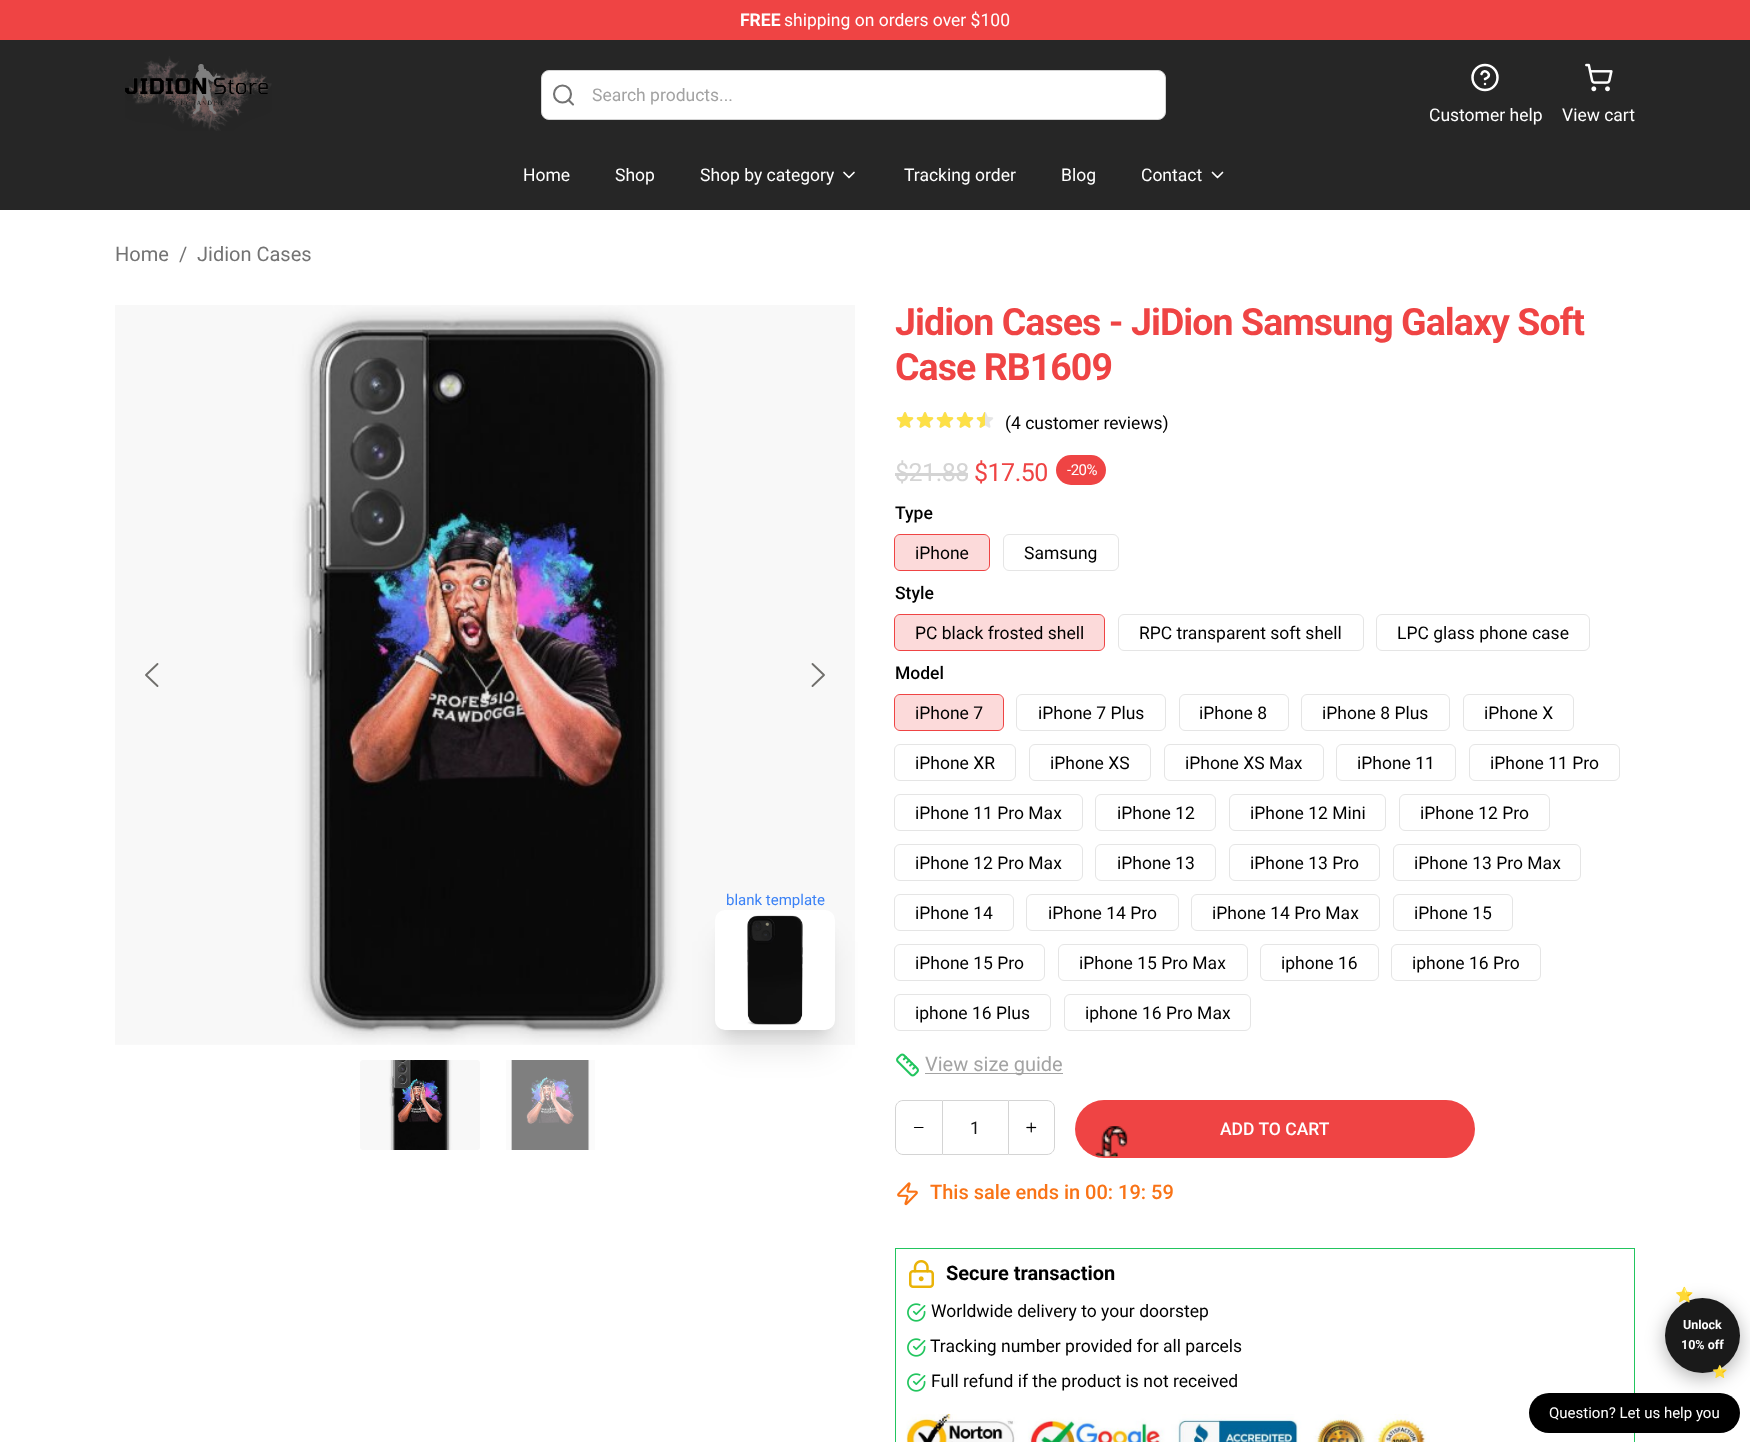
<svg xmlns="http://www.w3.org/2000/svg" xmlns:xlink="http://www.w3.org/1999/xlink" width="1750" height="1442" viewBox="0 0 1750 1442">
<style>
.cls-1{font:bold 17.5px Roboto;fill:#ffffff}
.cls-2{font:17.5px Roboto;fill:#ffffff}
.cls-3{font:17.5px Roboto;fill:#a3a3a3}
.cls-4{font:20px Roboto;fill:#737373}
.cls-5{font:15px Roboto;fill:#3b82f6}
.cls-6{font:bold 37.5px Roboto;letter-spacing:-0.95px;fill:#ef4444}
.cls-7{font:17.5px Roboto;fill:#000000}
.cls-8{font:25px Roboto;letter-spacing:-0.5px;fill:#d4d4d4}
.cls-9{font:25px Roboto;letter-spacing:-0.5px;fill:#ef4444}
.cls-10{font:15px Roboto;letter-spacing:-0.5px;fill:#ffffff}
.cls-11{font:500 17.5px Roboto;fill:#000000}
.cls-12{font:20px Roboto;fill:#a3a3a3}
.cls-13{font:17.5px Roboto;fill:#171717}
.cls-14{font:500 17.5px Roboto;fill:#ffffff}
.cls-15{font:500 20px Roboto;fill:#f97316}
.cls-16{font:bold 20px Roboto;fill:#000000}
.cls-17{font:bold 15px Noto Color Emoji;fill:#ffd700}
.cls-18{font:bold 12.5px Roboto;fill:#ffffff}
.cls-19{font:bold 12.5px Noto Color Emoji;fill:#ffd700}
.cls-20{font:15px Roboto;fill:#ffffff}
</style>
<rect width="100%" height="100%" fill="#ffffff"/>
<rect fill="#ef4444" x="0" y="0" width="1750" height="40"/>
<rect fill="#262626" x="0" y="40" width="1750" height="170"/>
<image xlink:href="image0.png" x="125" y="56" width="147" height="75"/>
<rect fill="#ffffff" stroke="#d4d4d4" x="541.5" y="70.5" width="624" height="49" rx="7.5"/>
<path fill="none" stroke="#737373" stroke-width="2.1" stroke-linecap="round" stroke-linejoin="round" d="M573 104.5L568.5 100"/>
<circle fill="none" stroke="#737373" stroke-width="2.1" cx="562.5" cy="94" r="8.5"/>
<circle fill="none" stroke="#ffffff" stroke-width="2.5" cx="1485" cy="77.5" r="12.5"/>
<path fill="none" stroke="#ffffff" stroke-width="2.5" stroke-linecap="round" stroke-linejoin="round" d="M1481.5 74C1484 67 1494.5 75.5 1485 79M1485 84H1485"/>
<image xlink:href="image1.png" x="1585" y="63" width="28" height="29"/>
<path fill="none" stroke="#ffffff" stroke-width="1.7" stroke-linecap="round" stroke-linejoin="round" d="M844 172.5L849 177.5L854 172.5"/>
<path fill="none" stroke="#ffffff" stroke-width="1.7" stroke-linecap="round" stroke-linejoin="round" d="M1212.5 172.5L1217.5 177.5L1222.5 172.5"/>
<image xlink:href="image2.png" x="115" y="305" width="740" height="740"/>
<path fill="none" stroke="#706f6c" stroke-width="1.9" stroke-linecap="round" stroke-linejoin="round" d="M157.5 664L146 675L157.5 686"/>
<path fill="none" stroke="#706f6c" stroke-width="1.9" stroke-linecap="round" stroke-linejoin="round" d="M812.5 664L824 675L812.5 686"/>
<rect fill="#000000" fill-opacity="0.1" filter="blur(6px)" x="723" y="928" width="105" height="105" rx="2.5"/>
<rect fill="#000000" fill-opacity="0.1" filter="blur(15.5px)" x="721" y="941" width="108" height="108" rx="4"/>
<rect fill="#ffffff" x="715" y="910" width="120" height="120" rx="10"/>
<image xlink:href="image3.png" x="747" y="915" width="56" height="110"/>
<image xlink:href="image4.png" x="360" y="1060" width="120" height="90"/>
<image xlink:href="image5.png" x="506" y="1060" width="89" height="90"/>
<image xlink:href="image6.png" x="896" y="412" width="18" height="16"/>
<image xlink:href="image6.png" x="916" y="412" width="18" height="16"/>
<image xlink:href="image6.png" x="936" y="412" width="18" height="16"/>
<image xlink:href="image6.png" x="956" y="412" width="18" height="16"/>
<image xlink:href="image6.png" x="976" y="412" width="18" height="16"/>
<image xlink:href="image7.png" x="896" y="412" width="18" height="16"/>
<image xlink:href="image7.png" x="916" y="412" width="18" height="16"/>
<image xlink:href="image7.png" x="936" y="412" width="18" height="16"/>
<image xlink:href="image7.png" x="956" y="412" width="18" height="16"/>
<image xlink:href="image8.png" x="976" y="412" width="9" height="16"/>
<rect fill="#d4d4d4" x="895" y="473" width="73" height="3"/>
<rect fill="#ef4444" x="1056" y="455" width="50" height="30" rx="15"/>
<rect fill="none" stroke="#ef4444" x="894.5" y="534.5" width="95" height="36" rx="5.5"/>
<rect fill="#ef4444" fill-opacity="0.2" x="895" y="535" width="94" height="35" rx="5"/>
<rect fill="none" stroke="#e5e5e5" x="1003.5" y="534.5" width="115" height="36" rx="5.5"/>
<rect fill="none" stroke="#ef4444" x="894.5" y="614.5" width="210" height="36" rx="5.5"/>
<rect fill="#ef4444" fill-opacity="0.2" x="895" y="615" width="209" height="35" rx="5"/>
<rect fill="none" stroke="#e5e5e5" x="1118.5" y="614.5" width="245" height="36" rx="5.5"/>
<rect fill="none" stroke="#e5e5e5" x="1376.5" y="614.5" width="213" height="36" rx="5.5"/>
<rect fill="none" stroke="#ef4444" x="894.5" y="694.5" width="109" height="36" rx="5.5"/>
<rect fill="#ef4444" fill-opacity="0.2" x="895" y="695" width="108" height="35" rx="5"/>
<rect fill="none" stroke="#e5e5e5" x="1016.5" y="694.5" width="149" height="36" rx="5.5"/>
<rect fill="none" stroke="#e5e5e5" x="1179.5" y="694.5" width="109" height="36" rx="5.5"/>
<rect fill="none" stroke="#e5e5e5" x="1301.5" y="694.5" width="148" height="36" rx="5.5"/>
<rect fill="none" stroke="#e5e5e5" x="1463.5" y="694.5" width="110" height="36" rx="5.5"/>
<rect fill="none" stroke="#e5e5e5" x="894.5" y="744.5" width="121" height="36" rx="5.5"/>
<rect fill="none" stroke="#e5e5e5" x="1029.5" y="744.5" width="121" height="36" rx="5.5"/>
<rect fill="none" stroke="#e5e5e5" x="1164.5" y="744.5" width="159" height="36" rx="5.5"/>
<rect fill="none" stroke="#e5e5e5" x="1336.5" y="744.5" width="119" height="36" rx="5.5"/>
<rect fill="none" stroke="#e5e5e5" x="1469.5" y="744.5" width="150" height="36" rx="5.5"/>
<rect fill="none" stroke="#e5e5e5" x="894.5" y="794.5" width="188" height="36" rx="5.5"/>
<rect fill="none" stroke="#e5e5e5" x="1095.5" y="794.5" width="120" height="36" rx="5.5"/>
<rect fill="none" stroke="#e5e5e5" x="1229.5" y="794.5" width="156" height="36" rx="5.5"/>
<rect fill="none" stroke="#e5e5e5" x="1399.5" y="794.5" width="150" height="36" rx="5.5"/>
<rect fill="none" stroke="#e5e5e5" x="894.5" y="844.5" width="188" height="36" rx="5.5"/>
<rect fill="none" stroke="#e5e5e5" x="1095.5" y="844.5" width="120" height="36" rx="5.5"/>
<rect fill="none" stroke="#e5e5e5" x="1229.5" y="844.5" width="150" height="36" rx="5.5"/>
<rect fill="none" stroke="#e5e5e5" x="1393.5" y="844.5" width="187" height="36" rx="5.5"/>
<rect fill="none" stroke="#e5e5e5" x="894.5" y="894.5" width="119" height="36" rx="5.5"/>
<rect fill="none" stroke="#e5e5e5" x="1026.5" y="894.5" width="152" height="36" rx="5.5"/>
<rect fill="none" stroke="#e5e5e5" x="1191.5" y="894.5" width="188" height="36" rx="5.5"/>
<rect fill="none" stroke="#e5e5e5" x="1393.5" y="894.5" width="119" height="36" rx="5.5"/>
<rect fill="none" stroke="#e5e5e5" x="894.5" y="944.5" width="150" height="36" rx="5.5"/>
<rect fill="none" stroke="#e5e5e5" x="1058.5" y="944.5" width="189" height="36" rx="5.5"/>
<rect fill="none" stroke="#e5e5e5" x="1260.5" y="944.5" width="118" height="36" rx="5.5"/>
<rect fill="none" stroke="#e5e5e5" x="1391.5" y="944.5" width="149" height="36" rx="5.5"/>
<rect fill="none" stroke="#e5e5e5" x="894.5" y="994.5" width="156" height="36" rx="5.5"/>
<rect fill="none" stroke="#e5e5e5" x="1064.5" y="994.5" width="186" height="36" rx="5.5"/>
<image xlink:href="image9.png" x="896" y="1053" width="23" height="24"/>
<rect fill="#a3a3a3" x="925" y="1073" width="138" height="1"/>
<path fill="none" stroke="#d4d4d4" d="M903 1100.5H942.5V1154.5H903C899 1154.5 895.5 1151 895.5 1147V1108C895.5 1104 899 1100.5 903 1100.5Z"/>
<path fill="none" stroke="#000000" stroke-width="1.2" stroke-linecap="round" stroke-linejoin="round" d="M914.5 1127.5H923"/>
<rect fill="#d4d4d4" x="943" y="1100" width="65" height="1"/>
<rect fill="#d4d4d4" x="943" y="1154" width="65" height="1"/>
<path fill="none" stroke="#d4d4d4" d="M1008.5 1100.5H1047C1051 1100.5 1054.5 1104 1054.5 1108V1147C1054.5 1151 1051 1154.5 1047 1154.5H1008.5Z"/>
<image xlink:href="image10.png" x="1026" y="1122" width="11" height="11"/>
<rect fill="#ef4444" x="1075" y="1100" width="400" height="58" rx="29"/>
<image xlink:href="image11.png" x="1095" y="1126" width="33" height="31"/>
<image xlink:href="image12.png" x="897" y="1182" width="21" height="24"/>
<rect fill="none" stroke="#22c55e" x="895.5" y="1248.5" width="739" height="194"/>
<image xlink:href="image13.png" x="909" y="1260" width="25" height="28"/>
<image xlink:href="image14.png" x="907" y="1303" width="19" height="19"/>
<image xlink:href="image14.png" x="907" y="1338" width="19" height="19"/>
<image xlink:href="image14.png" x="907" y="1373" width="19" height="19"/>
<image xlink:href="image15.png" x="906" y="1413" width="524" height="29"/>
<rect fill="#000000" x="1529" y="1393" width="211" height="40" rx="20"/>
<rect fill="#000000" fill-opacity="0.3" filter="blur(9.5px)" x="1665" y="1303" width="75" height="75" rx="37.5"/>
<circle fill="#1a1a1a" cx="1702.5" cy="1335.5" r="37.5"/>
<text class="cls-1" x="740" y="26">FREE</text>
<text class="cls-2" x="784" y="26">shipping on orders over $100</text>
<text class="cls-3" x="592" y="101">Search products...</text>
<text class="cls-2" x="1429" y="121">Customer help</text>
<text class="cls-2" x="1562" y="121">View cart</text>
<text class="cls-2" x="523" y="181">Home</text>
<text class="cls-2" x="615" y="181">Shop</text>
<text class="cls-2" x="700" y="181">Shop by category</text>
<text class="cls-2" x="904" y="181">Tracking order</text>
<text class="cls-2" x="1061" y="181">Blog</text>
<text class="cls-2" x="1141" y="181">Contact</text>
<text class="cls-4" x="115" y="261">Home</text>
<text class="cls-4" x="179" y="261">/</text>
<text class="cls-4" x="197" y="261">Jidion Cases</text>
<text class="cls-5" x="726" y="905">blank template</text>
<text class="cls-6"><tspan x="895" y="335">Jidion Cases - JiDion Samsung Galaxy Soft</tspan><tspan x="895" y="380">Case RB1609</tspan></text>
<text class="cls-7" x="1005" y="429">(4 customer reviews)</text>
<text class="cls-8" x="895" y="481">$21.88</text>
<text class="cls-9" x="974" y="481">$17.50</text>
<text class="cls-10" x="1067" y="475">-20%</text>
<text class="cls-11" x="895" y="519">Type</text>
<text class="cls-7" x="915" y="559">iPhone</text>
<text class="cls-7" x="1024" y="559">Samsung</text>
<text class="cls-11" x="895" y="599">Style</text>
<text class="cls-7" x="915" y="639">PC black frosted shell</text>
<text class="cls-7" x="1139" y="639">RPC transparent soft shell</text>
<text class="cls-7" x="1397" y="639">LPC glass phone case</text>
<text class="cls-11" x="895" y="679">Model</text>
<text class="cls-7" x="915" y="719">iPhone 7</text>
<text class="cls-7" x="1038" y="719">iPhone 7 Plus</text>
<text class="cls-7" x="1199" y="719">iPhone 8</text>
<text class="cls-7" x="1322" y="719">iPhone 8 Plus</text>
<text class="cls-7" x="1484" y="719">iPhone X</text>
<text class="cls-7" x="915" y="769">iPhone XR</text>
<text class="cls-7" x="1050" y="769">iPhone XS</text>
<text class="cls-7" x="1185" y="769">iPhone XS Max</text>
<text class="cls-7" x="1357" y="769">iPhone 11</text>
<text class="cls-7" x="1490" y="769">iPhone 11 Pro</text>
<text class="cls-7" x="915" y="819">iPhone 11 Pro Max</text>
<text class="cls-7" x="1117" y="819">iPhone 12</text>
<text class="cls-7" x="1250" y="819">iPhone 12 Mini</text>
<text class="cls-7" x="1420" y="819">iPhone 12 Pro</text>
<text class="cls-7" x="915" y="869">iPhone 12 Pro Max</text>
<text class="cls-7" x="1117" y="869">iPhone 13</text>
<text class="cls-7" x="1250" y="869">iPhone 13 Pro</text>
<text class="cls-7" x="1414" y="869">iPhone 13 Pro Max</text>
<text class="cls-7" x="915" y="919">iPhone 14</text>
<text class="cls-7" x="1048" y="919">iPhone 14 Pro</text>
<text class="cls-7" x="1212" y="919">iPhone 14 Pro Max</text>
<text class="cls-7" x="1414" y="919">iPhone 15</text>
<text class="cls-7" x="915" y="969">iPhone 15 Pro</text>
<text class="cls-7" x="1079" y="969">iPhone 15 Pro Max</text>
<text class="cls-7" x="1281" y="969">iphone 16</text>
<text class="cls-7" x="1412" y="969">iphone 16 Pro</text>
<text class="cls-7" x="915" y="1019">iphone 16 Plus</text>
<text class="cls-7" x="1085" y="1019">iphone 16 Pro Max</text>
<text class="cls-12" x="925" y="1071">View size guide</text>
<text class="cls-13" x="970" y="1134">1</text>
<text class="cls-14" x="1220" y="1135">ADD TO CART</text>
<text class="cls-15" x="930" y="1199">This sale ends in 00: 19: 59</text>
<text class="cls-16" x="946" y="1280">Secure transaction</text>
<text class="cls-7" x="931" y="1317">Worldwide delivery to your doorstep</text>
<text class="cls-7" x="930" y="1352">Tracking number provided for all parcels</text>
<text class="cls-7" x="931" y="1387">Full refund if the product is not received</text>
<text class="cls-17" x="1675" y="1300">⭐</text>
<text class="cls-18" x="1683" y="1329">Unlock</text>
<text class="cls-18" x="1681" y="1349">10% off</text>
<text class="cls-19" x="1712" y="1376">⭐</text>
<text class="cls-20" x="1549" y="1418">Question? Let us help you</text>
</svg>
